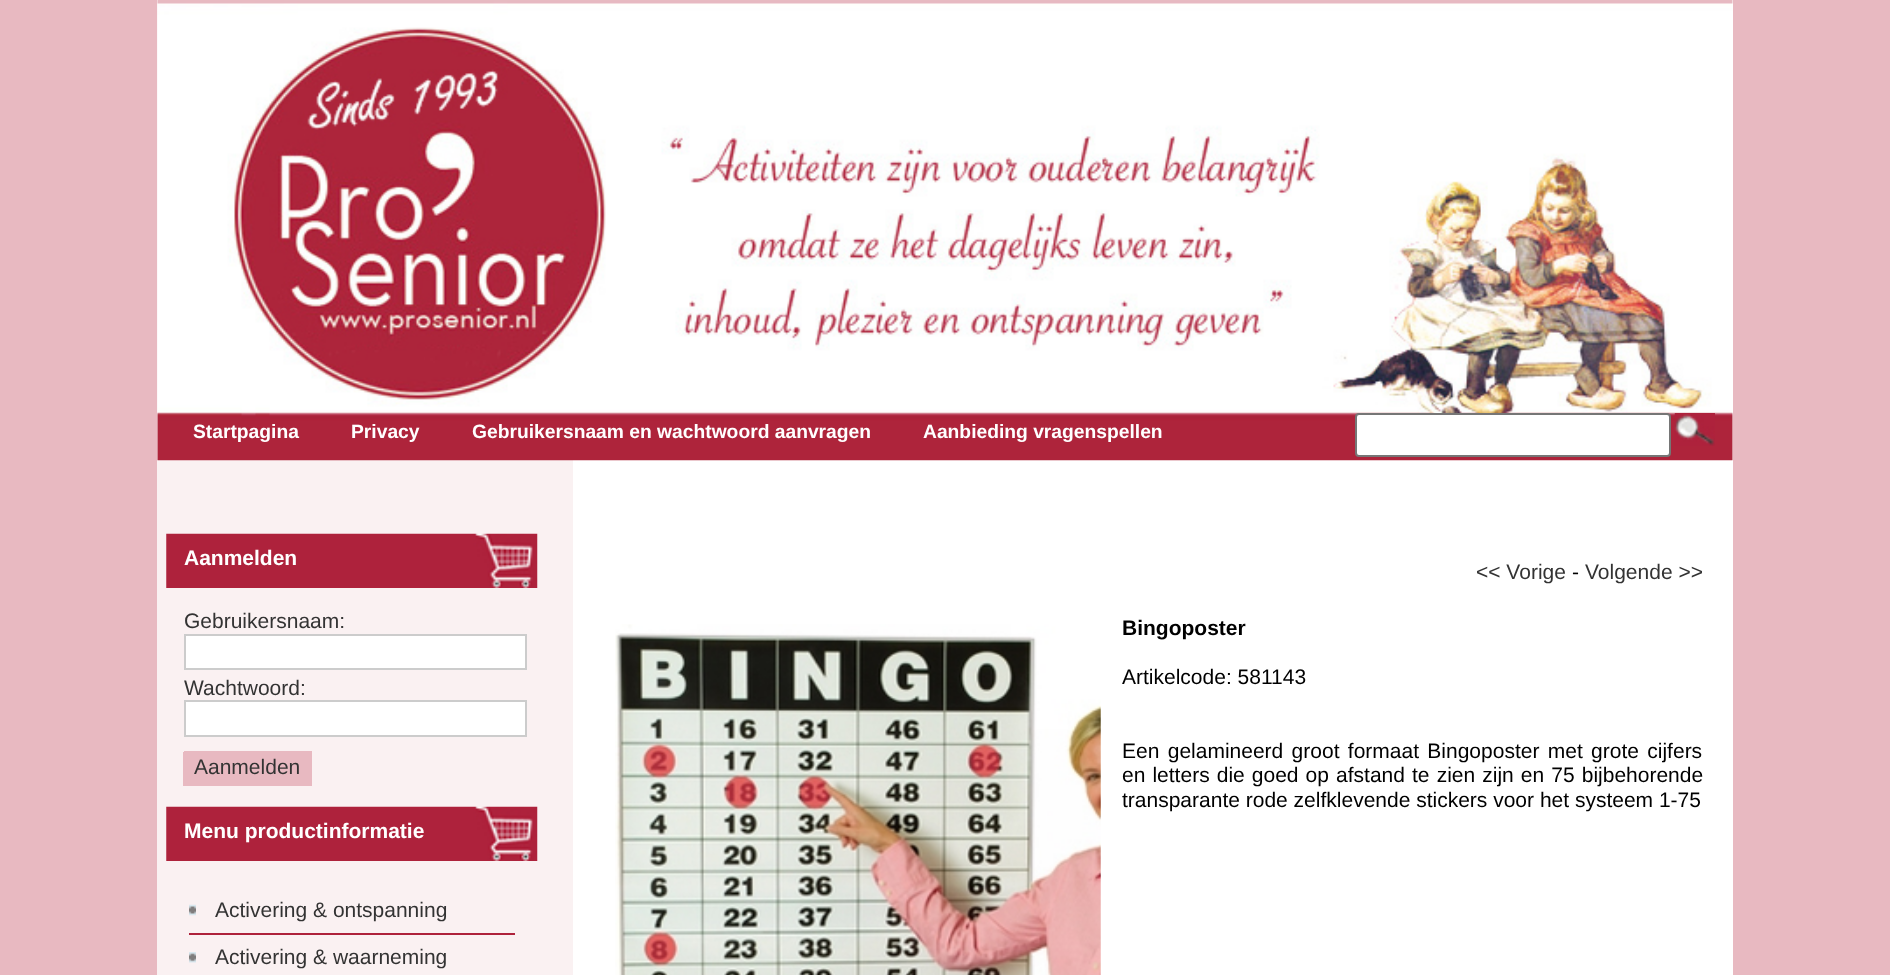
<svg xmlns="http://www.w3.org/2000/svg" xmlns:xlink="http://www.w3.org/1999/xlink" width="1890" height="975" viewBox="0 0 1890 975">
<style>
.cls-1{font:bold 19.25px Liberation Sans;fill:#ffffff}
.cls-2{font:bold 21px Liberation Sans;fill:#ffffff}
.cls-3{font:21px Liberation Sans;fill:#333333}
.cls-4{font:21px Liberation Sans;fill:#000000}
.cls-5{font:bold 21px Liberation Sans;fill:#000000}
</style>
<rect width="100%" height="100%" fill="#e8b9c1"/>
<rect fill="#ffffff" x="573" y="0" width="1160" height="975"/>
<rect fill="#faf1f2" x="157" y="0" width="416" height="975"/>
<image xlink:href="image0.png" x="157" y="0" width="1576" height="461"/>
<rect fill="#ffffff" stroke="#767676" stroke-width="2" x="1356" y="414" width="314" height="42" rx="3"/>
<image xlink:href="image1.png" x="1674" y="413" width="41" height="33"/>
<image xlink:href="image2.png" x="166" y="533" width="372" height="55"/>
<rect fill="#ffffff" stroke="#cccccc" stroke-width="2" x="185" y="635" width="341" height="34"/>
<rect fill="#ffffff" stroke="#cccccc" stroke-width="2" x="185" y="701" width="341" height="35"/>
<rect fill="#e8b9c1" x="183" y="752" width="127" height="34"/>
<rect fill="none" stroke="#e8b9c1" stroke-width="2" x="185" y="752" width="126" height="33"/>
<image xlink:href="image2.png" x="166" y="806" width="372" height="55"/>
<rect fill="#ae223c" x="189" y="933" width="326" height="2"/>
<image xlink:href="image3.png" x="189" y="904" width="7" height="12"/>
<image xlink:href="image4.png" x="189" y="952" width="7" height="11"/>
<image xlink:href="image5.png" x="615" y="624" width="486" height="351"/>
<text class="cls-1" x="193" y="438">Startpagina</text>
<text class="cls-1" x="351" y="438">Privacy</text>
<text class="cls-1" x="472" y="438">Gebruikersnaam en wachtwoord aanvragen</text>
<text class="cls-1" x="923" y="438">Aanbieding vragenspellen</text>
<text class="cls-2" x="184" y="565">Aanmelden</text>
<text class="cls-3" x="184" y="628">Gebruikersnaam:</text>
<text class="cls-3" x="184" y="695">Wachtwoord:</text>
<text class="cls-3" x="194" y="774">Aanmelden</text>
<text class="cls-2" x="184" y="838">Menu productinformatie</text>
<text class="cls-3" x="215" y="917">Activering &amp; ontspanning</text>
<text class="cls-3" x="215" y="964">Activering &amp; waarneming</text>
<text class="cls-3" x="1476" y="579">&lt;&lt; Vorige</text>
<text class="cls-4" x="1572" y="579">-</text>
<text class="cls-3" x="1585" y="579">Volgende &gt;&gt;</text>
<text class="cls-5" x="1122" y="635">Bingoposter</text>
<text class="cls-4" x="1122" y="684">Artikelcode: 581143</text>
<text class="cls-4"><tspan x="1122" y="758" word-spacing="2.5">Een gelamineerd groot formaat Bingoposter met grote cijfers</tspan><tspan x="1122" y="782" word-spacing="1.25">en letters die goed op afstand te zien zijn en 75 bijbehorende</tspan><tspan x="1122" y="807">transparante rode zelfklevende stickers voor het systeem 1-75</tspan></text>
</svg>
